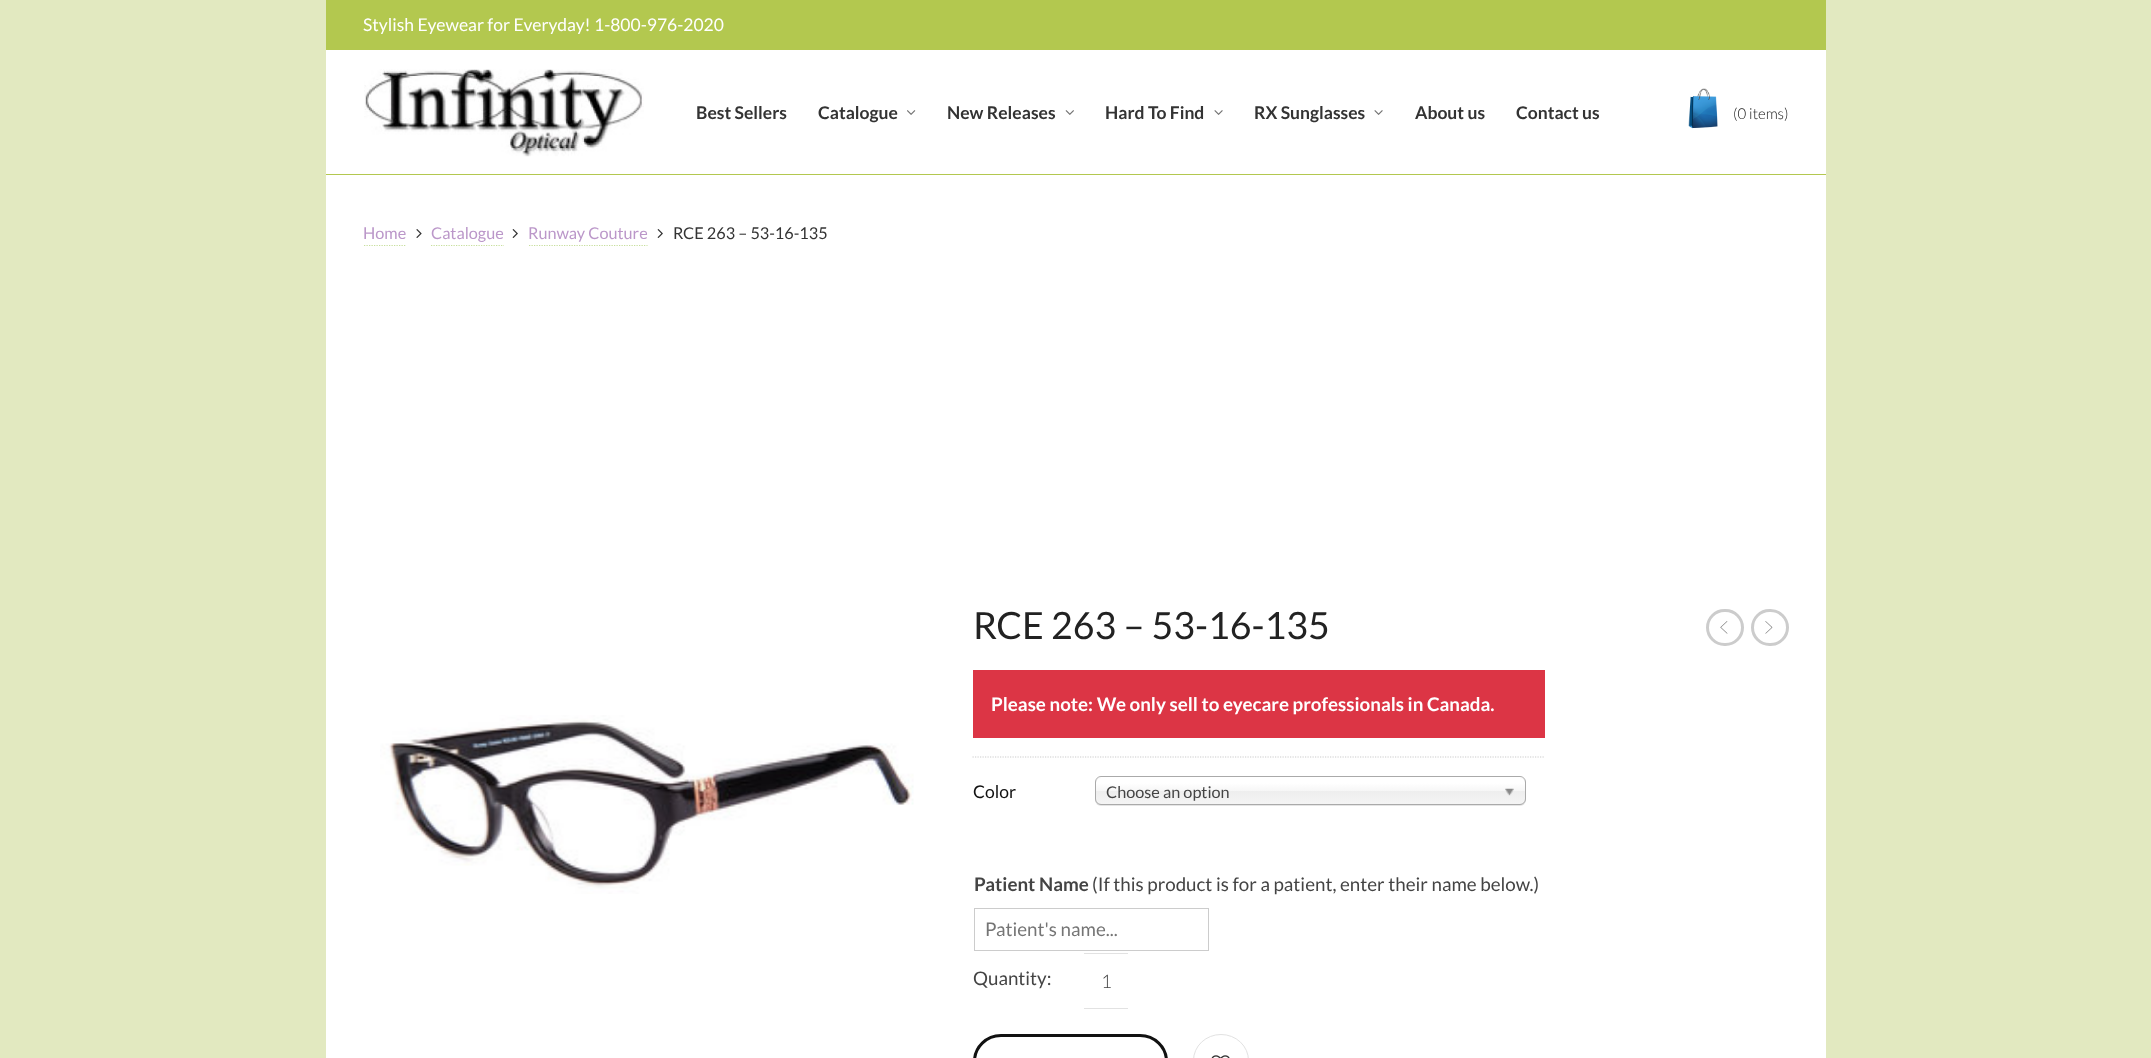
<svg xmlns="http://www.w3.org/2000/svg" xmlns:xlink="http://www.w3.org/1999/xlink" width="2151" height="1058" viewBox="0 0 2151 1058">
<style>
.cls-1{font:17.5px Lato;fill:#ffffff}
.cls-2{font:bold 17.5px Lato;fill:#333333}
.cls-3{font:300 15px Lato;fill:#111111}
.cls-4{font:16.25px Lato;fill:#bb97c9}
.cls-5{font:16.25px Lato;fill:#333333}
.cls-6{font:37.5px Lato;fill:#222222}
.cls-7{font:bold 18.75px Lato;fill:#ffffff}
.cls-8{font:17.5px Lato;fill:#111111}
.cls-9{font:16.25px Lato;fill:#444444}
.cls-10{font:bold 18.75px Lato;fill:#444444}
.cls-11{font:18.75px Lato;fill:#444444}
.cls-12{font:18.75px Lato;fill:#757575}
.cls-13{font:300 18.75px Lato;fill:#444444}
</style>
<defs>
<linearGradient id="g1" gradientUnits="userSpaceOnUse" x1="1311" y1="778" x2="1311" y2="804"><stop offset="0.2" stop-color="#ffffff"/><stop offset="0.5" stop-color="#f6f6f6"/><stop offset="0.52" stop-color="#eeeeee"/><stop offset="1" stop-color="#f4f4f4"/></linearGradient>
</defs>
<rect width="100%" height="100%" fill="#e2e9c0"/>
<rect fill="#ffffff" x="326" y="50" width="1500" height="1008"/>
<rect fill="#b3c84f" x="326" y="0" width="1500" height="50"/>
<rect fill="#b3c84f" x="326" y="174" width="1500" height="1"/>
<image xlink:href="image0.png" x="907" y="110" width="9" height="5"/>
<image xlink:href="image1.png" x="1065" y="110" width="9" height="5"/>
<image xlink:href="image2.png" x="1214" y="110" width="9" height="5"/>
<image xlink:href="image2.png" x="1374" y="110" width="9" height="5"/>
<image xlink:href="image3.png" x="364" y="69" width="280" height="88"/>
<image xlink:href="image4.png" x="1688" y="88" width="30" height="41"/>
<path fill="none" stroke="#c7df9c" stroke-width="1.2" stroke-dasharray="1.25 1.25" d="M364 245.5H406"/>
<image xlink:href="image5.png" x="416" y="229" width="6" height="9"/>
<path fill="none" stroke="#c7df9c" stroke-width="1.2" stroke-dasharray="1.25 1.25" d="M431 245.5H504"/>
<image xlink:href="image6.png" x="512" y="229" width="6" height="9"/>
<path fill="none" stroke="#c7df9c" stroke-width="1.2" stroke-dasharray="1.25 1.25" d="M529 245.5H647.5"/>
<image xlink:href="image6.png" x="657" y="229" width="6" height="9"/>
<image xlink:href="image7.png" x="380" y="715" width="534" height="179"/>
<rect fill="#dc3545" x="973" y="670" width="572" height="68"/>
<path fill="none" stroke="#cccccc" stroke-width="1.2" stroke-dasharray="1.25 1.25" d="M972.5 757H1545"/>
<rect fill="#000000" fill-opacity="0.1" filter="blur(0.5px)" x="1095" y="778" width="431" height="28" rx="6"/>
<rect fill="url(#g1)" x="1096" y="778" width="429" height="26" rx="5"/>
<rect fill="none" stroke="#aaaaaa" x="1095.5" y="776.5" width="430" height="28" rx="5.5"/>
<image xlink:href="image8.png" x="1505" y="788" width="9" height="8"/>
<rect fill="none" stroke="#cccccc" x="974.5" y="908.5" width="234" height="42"/>
<rect fill="#e2e2e2" x="1084" y="953" width="44" height="1"/>
<rect fill="#e2e2e2" x="1084" y="1008" width="44" height="1"/>
<rect fill="none" stroke="#111111" stroke-width="3" x="974.5" y="1035.5" width="192" height="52" rx="26.5"/>
<rect fill="none" stroke="#e2e2e2" x="1193.5" y="1034.5" width="55" height="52" rx="27.5"/>
<image xlink:href="image9.png" x="1211" y="1055" width="19" height="3"/>
<rect fill="none" stroke="#cccccc" stroke-width="3" x="1707.5" y="610.5" width="35" height="34" rx="17"/>
<image xlink:href="image10.png" x="1720" y="621" width="8" height="13"/>
<rect fill="none" stroke="#cccccc" stroke-width="3" x="1752.5" y="610.5" width="35" height="34" rx="17"/>
<image xlink:href="image11.png" x="1765" y="621" width="8" height="13"/>
<text class="cls-1" x="363" y="31">Stylish Eyewear for Everyday! 1-800-976-2020</text>
<text class="cls-2" x="696" y="119">Best Sellers</text>
<text class="cls-2" x="818" y="119">Catalogue</text>
<text class="cls-2" x="947" y="119">New Releases</text>
<text class="cls-2" x="1105" y="119">Hard To Find</text>
<text class="cls-2" x="1254" y="119">RX Sunglasses</text>
<text class="cls-2" x="1415" y="119">About us</text>
<text class="cls-2" x="1516" y="119">Contact us</text>
<text class="cls-3" x="1733" y="119">(0 items)</text>
<text class="cls-4" x="363" y="239">Home</text>
<text class="cls-4" x="431" y="239">Catalogue</text>
<text class="cls-4" x="528" y="239">Runway Couture</text>
<text class="cls-5" x="673" y="239">RCE 263 – 53-16-135</text>
<text class="cls-6" x="973" y="639">RCE 263 – 53-16-135</text>
<text class="cls-7" x="991" y="711">Please note: We only sell to eyecare professionals in Canada.</text>
<text class="cls-8" x="973" y="798">Color</text>
<text class="cls-9" x="1106" y="798">Choose an option</text>
<text class="cls-10" x="974" y="891">Patient Name</text>
<text class="cls-11" x="1092" y="891">(If this product is for a patient, enter their name below.)</text>
<text class="cls-12" x="985" y="936">Patient's name...</text>
<text class="cls-11" x="973" y="985">Quantity:</text>
<text class="cls-13" x="1101" y="988">1</text>
</svg>
